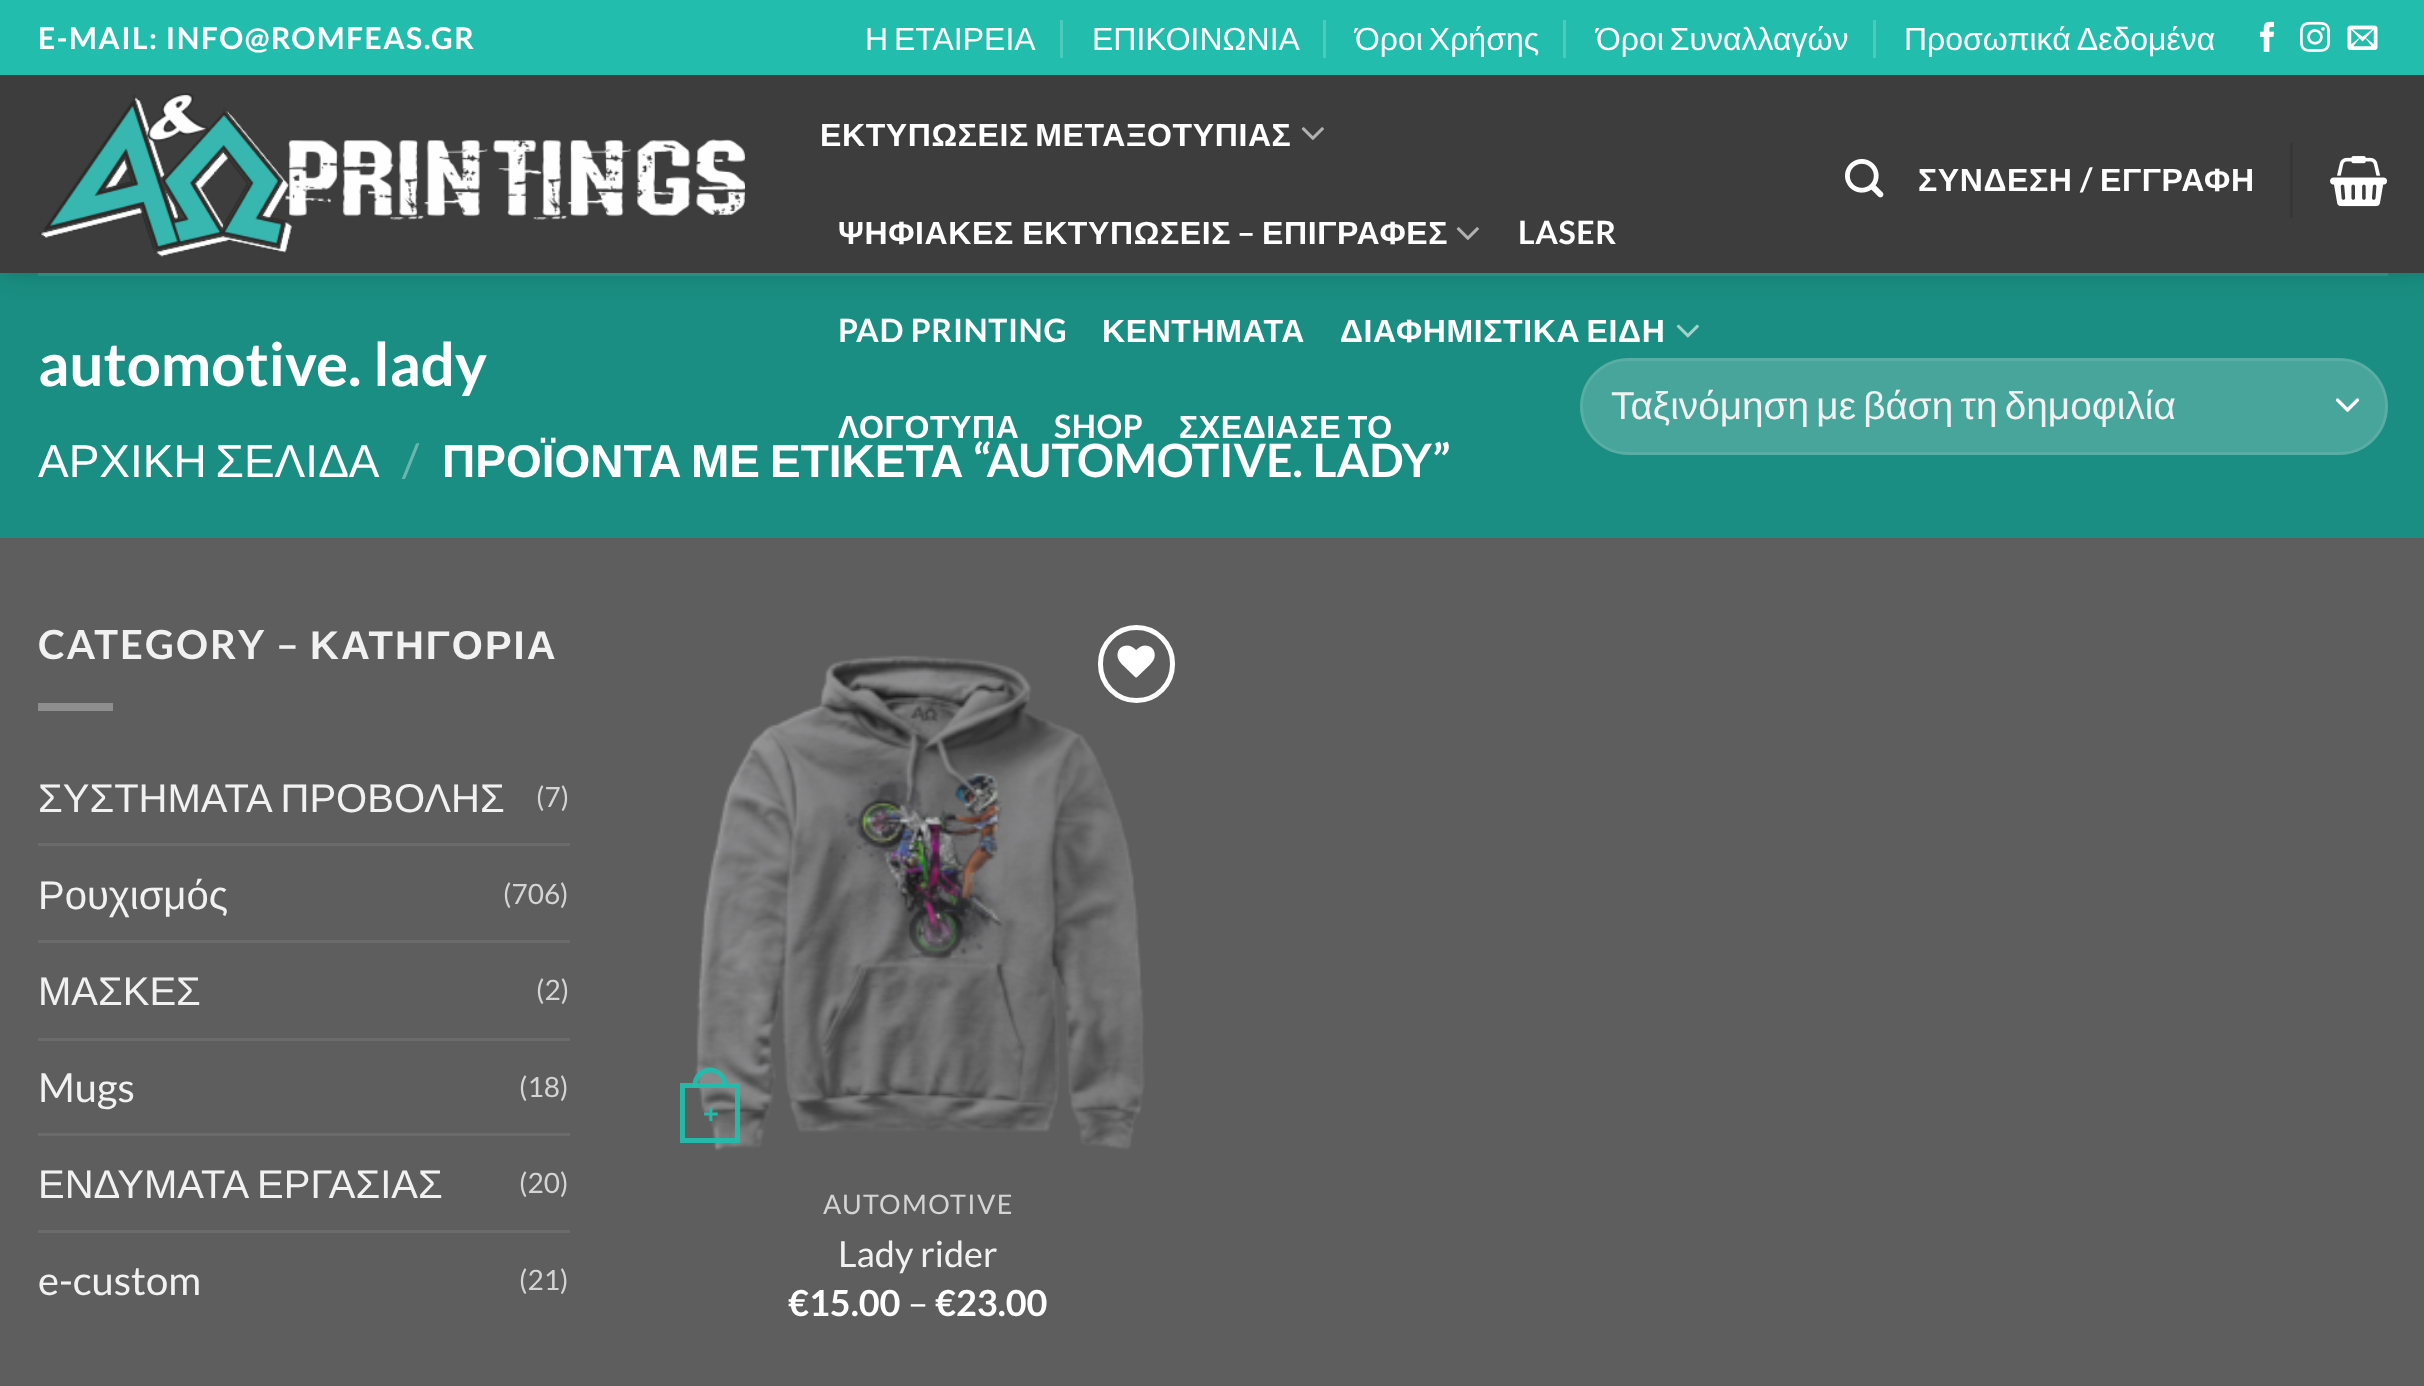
<svg xmlns="http://www.w3.org/2000/svg" xmlns:xlink="http://www.w3.org/1999/xlink" width="2424" height="1386" viewBox="0 0 2424 1386">
<style>
.cls-1{font:bold 30px Lato;letter-spacing:1.5px;fill:#ffffff}
.cls-2{font:32px Liberation Sans;fill:#ffffff}
.cls-3{font:bold 32px Liberation Sans;letter-spacing:0.6px;fill:#ffffff}
.cls-4{font:bold 32px Lato;letter-spacing:0.6px;fill:#ffffff}
.cls-5{font:bold 60px Lato;fill:#ffffff}
.cls-6{font:46px Liberation Sans;fill:#ffffff}
.cls-7{font:46px Lato;fill:#6ab6ae}
.cls-8{font:bold 46px Liberation Sans;fill:#ffffff}
.cls-9{font:bold 46px Lato;fill:#ffffff}
.cls-10{font:38.75px Liberation Sans;fill:#f1f1f1}
.cls-11{font:bold 40px Lato;letter-spacing:2px;fill:#f1f1f1}
.cls-12{font:bold 40px Liberation Sans;letter-spacing:2px;fill:#f1f1f1}
.cls-13{font:40px Liberation Sans;fill:#f1f1f1}
.cls-14{font:28px Lato;fill:#d4d4d4}
.cls-15{font:40px Lato;fill:#f1f1f1}
.cls-16{font:bold 27px Liberation Sans;fill:#25b9a9}
.cls-17{font:27px Lato;letter-spacing:1.4px;fill:#d4d4d4}
.cls-18{font:36px Lato;fill:#f1f1f1}
.cls-19{font:bold 36px Lato;fill:#ffffff}
.cls-20{font:36px Lato;fill:#ffffff}
</style>
<defs>
<clipPath id="clip1"><path d="M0 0H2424V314H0ZM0 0H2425V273H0Z" clip-rule="evenodd"/></clipPath>
</defs>
<rect width="100%" height="100%" fill="#5e5e5e"/>
<rect fill="#1a8e82" x="0" y="273" width="2424" height="265"/>
<g clip-path="url(#clip1)">
<rect fill="#000000" fill-opacity="0.15" filter="blur(12.5px)" x="3" y="3" width="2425" height="272"/>
</g>
<rect fill="#22bdad" x="0" y="0" width="2424" height="75"/>
<rect fill="#4ecabd" x="1060" y="20" width="3" height="38"/>
<rect fill="#4ecabd" x="1323" y="20" width="3" height="38"/>
<rect fill="#4ecabd" x="1563" y="20" width="3" height="38"/>
<rect fill="#4ecabd" x="1873" y="20" width="3" height="38"/>
<image xlink:href="image0.png" x="2260" y="21" width="14" height="31"/>
<image xlink:href="image1.png" x="2300" y="21" width="30" height="31"/>
<image xlink:href="image2.png" x="2347" y="25" width="31" height="25"/>
<rect fill="#3a3a3a" fill-opacity="0.9" x="0" y="75" width="2424" height="198"/>
<image xlink:href="image3.png" x="39" y="93" width="706" height="164"/>
<image xlink:href="image4.png" x="1301" y="127" width="23" height="13"/>
<image xlink:href="image4.png" x="1456" y="227" width="23" height="13"/>
<image xlink:href="image5.png" x="1676" y="324" width="23" height="14"/>
<image xlink:href="image6.png" x="1845" y="159" width="39" height="39"/>
<rect fill="#373737" x="2290" y="143" width="3" height="75"/>
<image xlink:href="image7.png" x="2330" y="156" width="58" height="51"/>
<rect fill="#2c8d83" x="38" y="273" width="2350" height="3"/>
<rect fill="#48a59b" x="1580" y="358" width="808" height="97" rx="48.5"/>
<path fill="none" stroke="#ffffff" stroke-width="3.3" stroke-linecap="round" stroke-linejoin="round" d="M2337.5 400L2347.5 410L2357.5 400"/>
<rect fill="none" stroke="#ffffff" stroke-opacity="0.09" stroke-width="3" x="1581.5" y="359.5" width="805" height="94" rx="47"/>
<rect fill="#8e8e8e" x="38" y="703" width="75" height="8"/>
<rect fill="#6b6b6b" x="38" y="843" width="532" height="3"/>
<rect fill="#6b6b6b" x="38" y="940" width="532" height="3"/>
<rect fill="#6b6b6b" x="38" y="1038" width="532" height="3"/>
<rect fill="#6b6b6b" x="38" y="1133" width="532" height="3"/>
<rect fill="#6b6b6b" x="38" y="1230" width="532" height="3"/>
<image xlink:href="image9.png" x="695" y="655" width="450" height="496"/>
<rect fill="none" stroke="#ffffff" stroke-width="5" x="1100.5" y="627.5" width="72" height="73" rx="36"/>
<image xlink:href="image8.png" x="1117" y="645" width="38" height="33"/>
<rect fill="none" stroke="#22bdad" stroke-opacity="0.95" stroke-width="5" x="682.5" y="1085.5" width="55" height="55"/>
<path fill="#22bdad" fill-opacity="0.95" fill-rule="evenodd" d="M710 1067.5C719.5 1067.5 727.5 1075.5 727.5 1085V1087.5H692.5V1085C692.5 1075.5 700.5 1067.5 710 1067.5ZM710 1072.5C717 1072.5 722.5 1078 722.5 1085V1087.5H697.5V1085C697.5 1078 703 1072.5 710 1072.5Z"/>
<text class="cls-1" x="38" y="49">E-MAIL: INFO@ROMFEAS.GR</text>
<text class="cls-2" x="865" y="50" word-spacing="-3">Η ΕΤΑΙΡΕΙΑ</text>
<text class="cls-2" x="1092" y="50">ΕΠΙΚΟΙΝΩΝΙΑ</text>
<text class="cls-2" x="1355" y="50" word-spacing="-3">Όροι Χρήσης</text>
<text class="cls-2" x="1596" y="50" word-spacing="-3">Όροι Συναλλαγών</text>
<text class="cls-2" x="1904" y="50" word-spacing="-1">Προσωπικά Δεδομένα</text>
<text class="cls-3" x="820" y="146" word-spacing="-3">ΕΚΤΥΠΩΣΕΙΣ ΜΕΤΑΞΟΤΥΠΙΑΣ</text>
<text class="cls-3" x="838" y="244" word-spacing="-1">ΨΗΦΙΑΚΕΣ ΕΚΤΥΠΩΣΕΙΣ</text>
<text class="cls-4" x="1237" y="244">–</text>
<text class="cls-3" x="1262" y="244">ΕΠΙΓΡΑΦΕΣ</text>
<text class="cls-4" x="1518" y="244">LASER</text>
<text class="cls-4" x="838" y="342">PAD PRINTING</text>
<text class="cls-3" x="1102" y="342">ΚΕΝΤΗΜΑΤΑ</text>
<text class="cls-3" x="1340" y="342" word-spacing="-3">ΔΙΑΦΗΜΙΣΤΙΚΑ ΕΙΔΗ</text>
<text class="cls-3" x="838" y="438">ΛΟΓΟΤΥΠΑ</text>
<text class="cls-4" x="1054" y="438">SHOP</text>
<text class="cls-3" x="1179" y="438" word-spacing="-3">ΣΧΕΔΙΑΣΕ ΤΟ</text>
<text class="cls-3" x="1918" y="191">ΣΥΝΔΕΣΗ</text>
<text class="cls-4" x="2080" y="191">/</text>
<text class="cls-3" x="2100" y="191">ΕΓΓΡΑΦΗ</text>
<text class="cls-5" x="38" y="386">automotive. lady</text>
<text class="cls-6" x="38" y="477" word-spacing="-4">ΑΡΧΙΚΗ ΣΕΛΙΔΑ</text>
<text class="cls-7" x="402" y="477">/</text>
<text class="cls-8" x="442" y="477">ΠΡΟΪΟΝΤΑ</text>
<text class="cls-8" x="691" y="477">ΜΕ</text>
<text class="cls-8" x="770" y="477">ΕΤΙΚΕΤΑ</text>
<text class="cls-9" x="973" y="477" word-spacing="1">“AUTOMOTIVE. LADY”</text>
<text class="cls-10" x="1611" y="419" word-spacing="-3.5">Ταξινόμηση με βάση τη δημοφιλία</text>
<text class="cls-11" x="38" y="659">CATEGORY –</text>
<text class="cls-12" x="310" y="659">ΚΑΤΗΓΟΡΙΑ</text>
<text class="cls-13" x="38" y="812" word-spacing="-1">ΣΥΣΤΗΜΑΤΑ ΠΡΟΒΟΛΗΣ</text>
<text class="cls-14" x="536" y="807">(7)</text>
<text class="cls-13" x="38" y="909">Ρουχισμός</text>
<text class="cls-14" x="503" y="904">(706)</text>
<text class="cls-13" x="38" y="1005">ΜΑΣΚΕΣ</text>
<text class="cls-14" x="536" y="1000">(2)</text>
<text class="cls-15" x="38" y="1102">Mugs</text>
<text class="cls-14" x="519" y="1097">(18)</text>
<text class="cls-13" x="38" y="1198" word-spacing="-1">ΕΝΔΥΜΑΤΑ ΕΡΓΑΣΙΑΣ</text>
<text class="cls-14" x="519" y="1193">(20)</text>
<text class="cls-15" x="38" y="1295">e-custom</text>
<text class="cls-14" x="519" y="1290">(21)</text>
<text class="cls-16" x="703" y="1123">+</text>
<text class="cls-17" x="823" y="1214">AUTOMOTIVE</text>
<text class="cls-18" x="838" y="1267">Lady rider</text>
<text class="cls-19" x="788" y="1316">€15.00</text>
<text class="cls-20" x="908" y="1316">–</text>
<text class="cls-19" x="935" y="1316">€23.00</text>
</svg>
